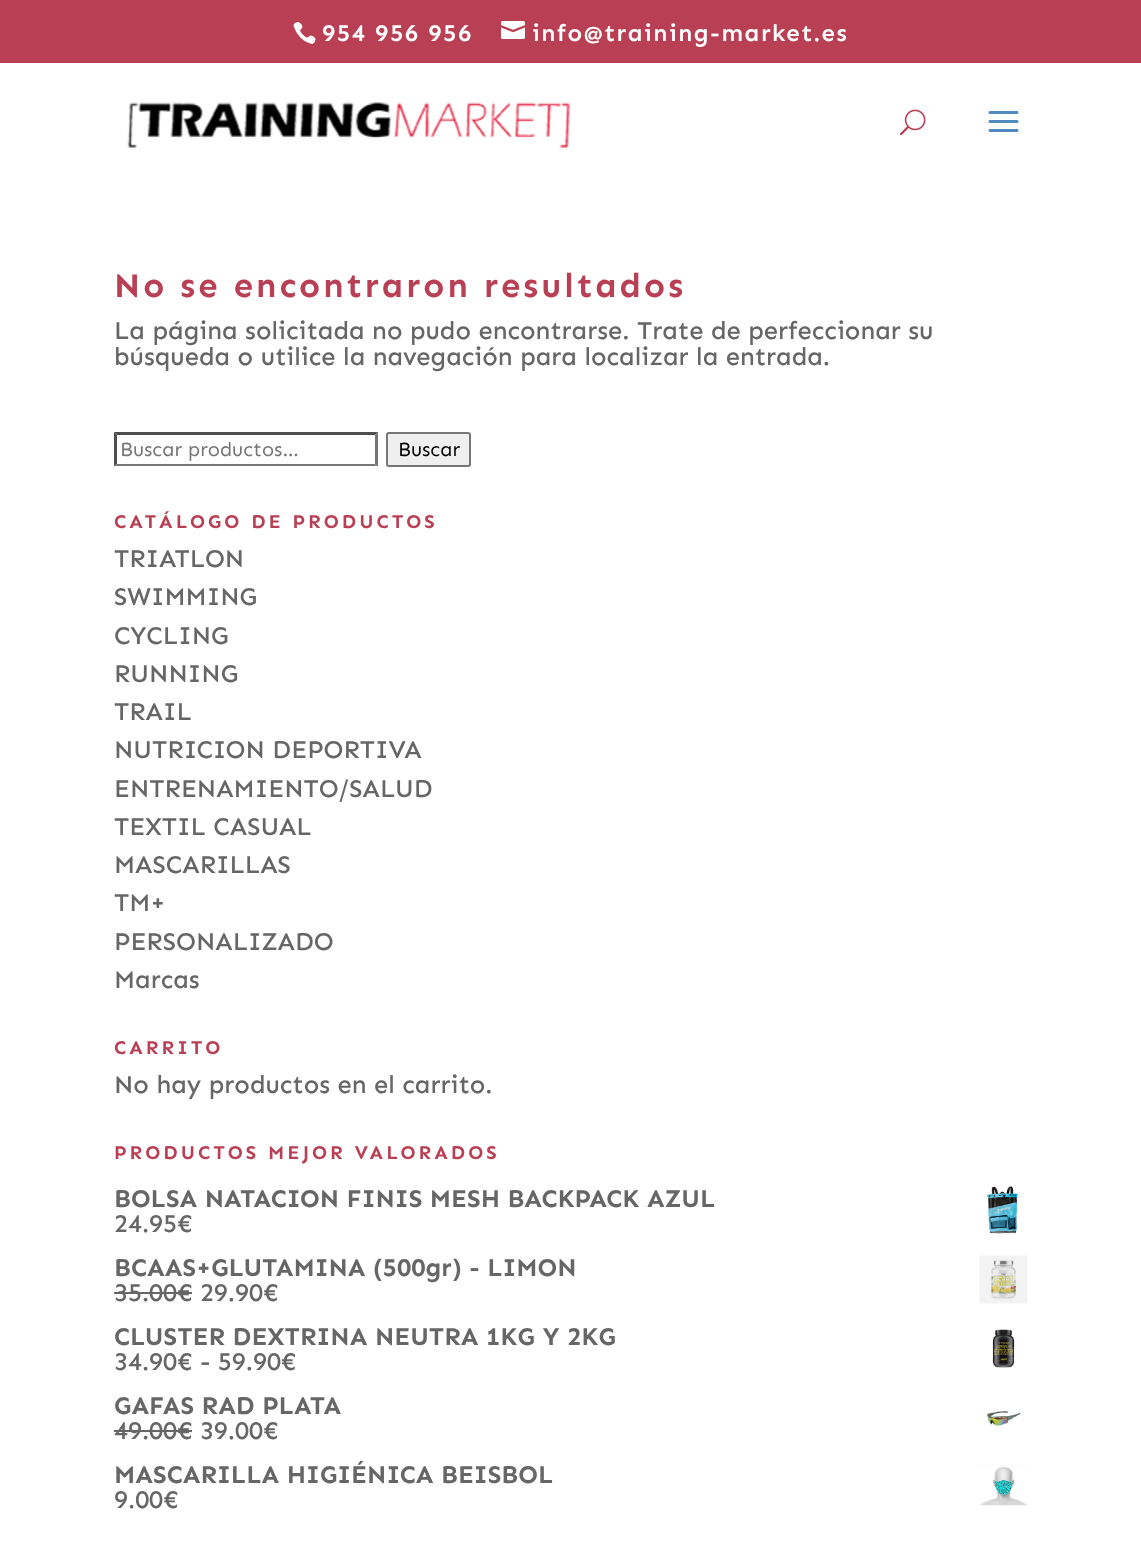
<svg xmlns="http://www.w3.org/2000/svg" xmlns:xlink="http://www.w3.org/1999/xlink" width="1141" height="1564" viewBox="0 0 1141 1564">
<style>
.cls-1{font:600 24px Sen;letter-spacing:1.5px;fill:#ffffff}
.cls-2{font:bold 34.5px Sen;letter-spacing:3px;fill:#b94054}
.cls-3{font:500 25.5px Sen;fill:#666666}
.cls-4{font:20px Sen;fill:#757575}
.cls-5{font:20px Sen;fill:#000000}
.cls-6{font:bold 19.5px Sen;letter-spacing:3px;fill:#b94054}
.cls-7{font:bold 25.5px Sen;fill:#666666}
</style>
<rect width="100%" height="100%" fill="#ffffff"/>
<rect fill="#b94054" x="0" y="0" width="1141" height="63"/>
<image xlink:href="image0.png" x="293" y="22" width="23" height="22"/>
<image xlink:href="image1.png" x="501" y="21" width="24" height="18"/>
<image xlink:href="image2.png" x="127" y="102" width="444" height="46"/>
<image xlink:href="image3.png" x="899" y="109" width="27" height="27"/>
<image xlink:href="image4.png" x="988" y="111" width="31" height="21"/>
<path fill="#4f4f4f" d="M114 432H378L375 435H117Z"/>
<path fill="#767676" d="M378 432V466.5L375 463.5V435Z"/>
<path fill="#767676" d="M378 466H114L117 464H375Z"/>
<path fill="#4f4f4f" d="M114 466.5V432L117 435V463.5Z"/>
<rect fill="#efefef" stroke="#767676" stroke-width="2" x="387" y="433" width="83" height="33" rx="2"/>
<image xlink:href="image5.png" x="986" y="1186" width="32" height="48"/>
<image xlink:href="image6.png" x="979" y="1255" width="49" height="49"/>
<rect fill="#666666" x="114" y="1292" width="78" height="2"/>
<image xlink:href="image7.png" x="992" y="1329" width="23" height="39"/>
<image xlink:href="image8.png" x="987" y="1411" width="34" height="15"/>
<rect fill="#666666" x="114" y="1430" width="78" height="2"/>
<image xlink:href="image9.png" x="979" y="1465" width="49" height="41"/>
<text class="cls-1" x="322" y="41">954 956 956</text>
<text class="cls-1" x="532" y="41">info@training-market.es</text>
<text class="cls-2" x="114" y="297">No se encontraron resultados</text>
<text class="cls-3"><tspan x="114" y="339">La página solicitada no pudo encontrarse. Trate de perfeccionar su</tspan><tspan x="114" y="365">búsqueda o utilice la navegación para localizar la entrada.</tspan></text>
<text class="cls-4" x="120" y="456">Buscar productos…</text>
<text class="cls-5" x="398" y="456">Buscar</text>
<text class="cls-6" x="114" y="528">CATÁLOGO DE PRODUCTOS</text>
<text class="cls-3"><tspan x="114" y="567">TRIATLON</tspan><tspan x="114" y="605">SWIMMING</tspan><tspan x="114" y="644">CYCLING</tspan><tspan x="114" y="682">RUNNING</tspan><tspan x="114" y="720">TRAIL</tspan><tspan x="114" y="758">NUTRICION DEPORTIVA</tspan><tspan x="114" y="797">ENTRENAMIENTO/SALUD</tspan><tspan x="114" y="835">TEXTIL CASUAL</tspan><tspan x="114" y="873">MASCARILLAS</tspan><tspan x="114" y="911">TM+</tspan><tspan x="114" y="950">PERSONALIZADO</tspan><tspan x="114" y="988">Marcas</tspan></text>
<text class="cls-6" x="114" y="1054">CARRITO</text>
<text class="cls-3" x="114" y="1093">No hay productos en el carrito.</text>
<text class="cls-6" x="114" y="1159">PRODUCTOS MEJOR VALORADOS</text>
<text class="cls-7" x="114" y="1207">BOLSA NATACION FINIS MESH BACKPACK AZUL</text>
<text class="cls-3" x="114" y="1232">24.95€</text>
<text class="cls-7" x="114" y="1276">BCAAS+GLUTAMINA (500gr) - LIMON</text>
<text class="cls-3" x="114" y="1301">35.00€ 29.90€</text>
<text class="cls-7" x="114" y="1345">CLUSTER DEXTRINA NEUTRA 1KG Y 2KG</text>
<text class="cls-3" x="114" y="1370">34.90€ - 59.90€</text>
<text class="cls-7" x="114" y="1414">GAFAS RAD PLATA</text>
<text class="cls-3" x="114" y="1439">49.00€ 39.00€</text>
<text class="cls-7" x="114" y="1483">MASCARILLA HIGIÉNICA BEISBOL</text>
<text class="cls-3" x="114" y="1508">9.00€</text>
</svg>
